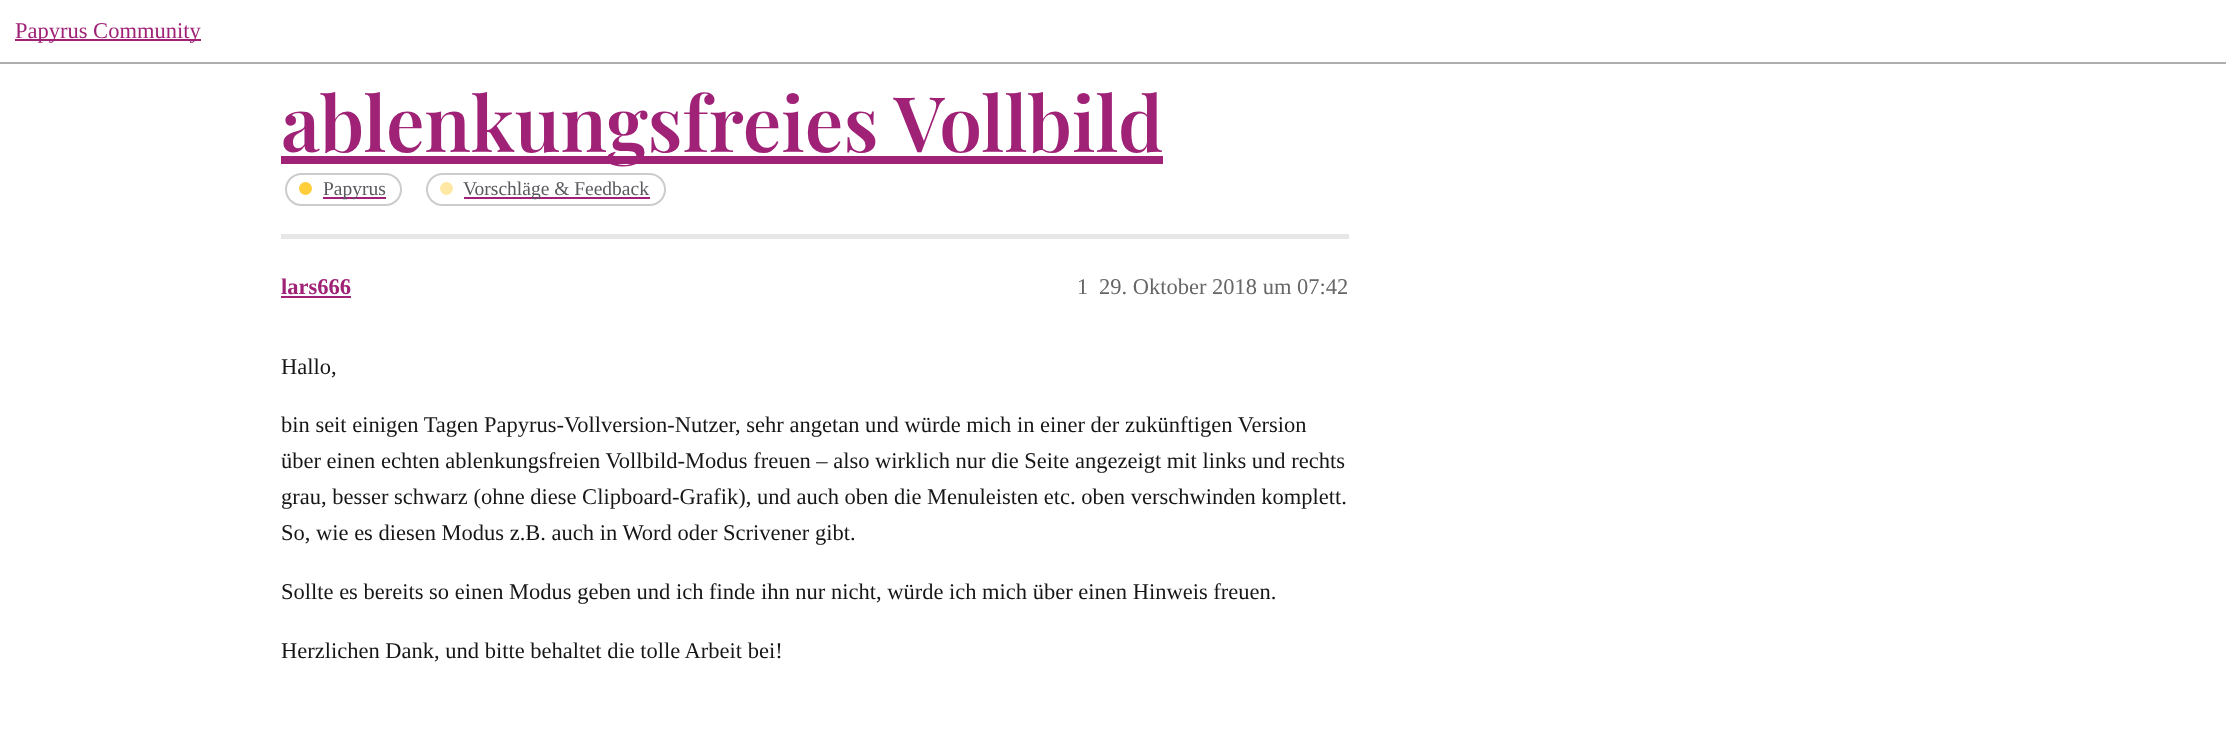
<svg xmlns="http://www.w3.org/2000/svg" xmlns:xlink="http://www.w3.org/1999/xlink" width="2226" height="732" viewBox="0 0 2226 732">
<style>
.cls-1{font:22.5px Liberation Serif;fill:#9f2277}
.cls-2{font:600 76.5px Playfair Display;fill:#9f2277}
.cls-3{font:19.5px Liberation Serif;fill:#5a5a5e}
.cls-4{font:bold 22.5px Liberation Serif;fill:#9f2277}
.cls-5{font:22.5px Liberation Serif;fill:#666666}
.cls-6{font:22.5px Liberation Serif;fill:#161617}
</style>
<rect width="100%" height="100%" fill="#ffffff"/>
<rect fill="#aeaeae" x="0" y="62" width="2226" height="2"/>
<rect fill="#9f2277" x="15" y="39" width="186" height="2"/>
<rect fill="#9f2277" x="281" y="156" width="882" height="8"/>
<rect fill="none" stroke="#cccccc" stroke-width="2" x="286" y="174" width="115" height="31" rx="15.5"/>
<circle fill="#ffce3a" cx="305.5" cy="188.5" r="6.5"/>
<rect fill="#9f2277" x="323" y="197" width="63" height="2"/>
<rect fill="none" stroke="#cccccc" stroke-width="2" x="427" y="174" width="238" height="31" rx="15.5"/>
<circle fill="#ffe8a3" cx="446.5" cy="188.5" r="6.5"/>
<rect fill="#9f2277" x="464" y="197" width="186" height="2"/>
<rect fill="#e7e7e8" x="281" y="234" width="1068" height="5"/>
<rect fill="#9f2277" x="281" y="296" width="70" height="2"/>
<text class="cls-1" x="15" y="38">Papyrus Community</text>
<text class="cls-2" x="281" y="152">ablenkungsfreies Vollbild</text>
<text class="cls-3" x="323" y="195">Papyrus</text>
<text class="cls-3" x="463" y="195">Vorschläge &amp; Feedback</text>
<text class="cls-4" x="281" y="294">lars666</text>
<text class="cls-5" x="1077" y="294">1</text>
<text class="cls-5" x="1099" y="294">29. Oktober 2018 um 07:42</text>
<text class="cls-6" x="281" y="374">Hallo,</text>
<text class="cls-6"><tspan x="281" y="432">bin seit einigen Tagen Papyrus-Vollversion-Nutzer, sehr angetan und würde mich in einer der zukünftigen Version</tspan><tspan x="281" y="468">über einen echten ablenkungsfreien Vollbild-Modus freuen – also wirklich nur die Seite angezeigt mit links und rechts</tspan><tspan x="281" y="504">grau, besser schwarz (ohne diese Clipboard-Grafik), und auch oben die Menuleisten etc. oben verschwinden komplett.</tspan><tspan x="281" y="540">So, wie es diesen Modus z.B. auch in Word oder Scrivener gibt.</tspan></text>
<text class="cls-6" x="281" y="599">Sollte es bereits so einen Modus geben und ich finde ihn nur nicht, würde ich mich über einen Hinweis freuen.</text>
<text class="cls-6" x="281" y="658">Herzlichen Dank, und bitte behaltet die tolle Arbeit bei!</text>
</svg>
